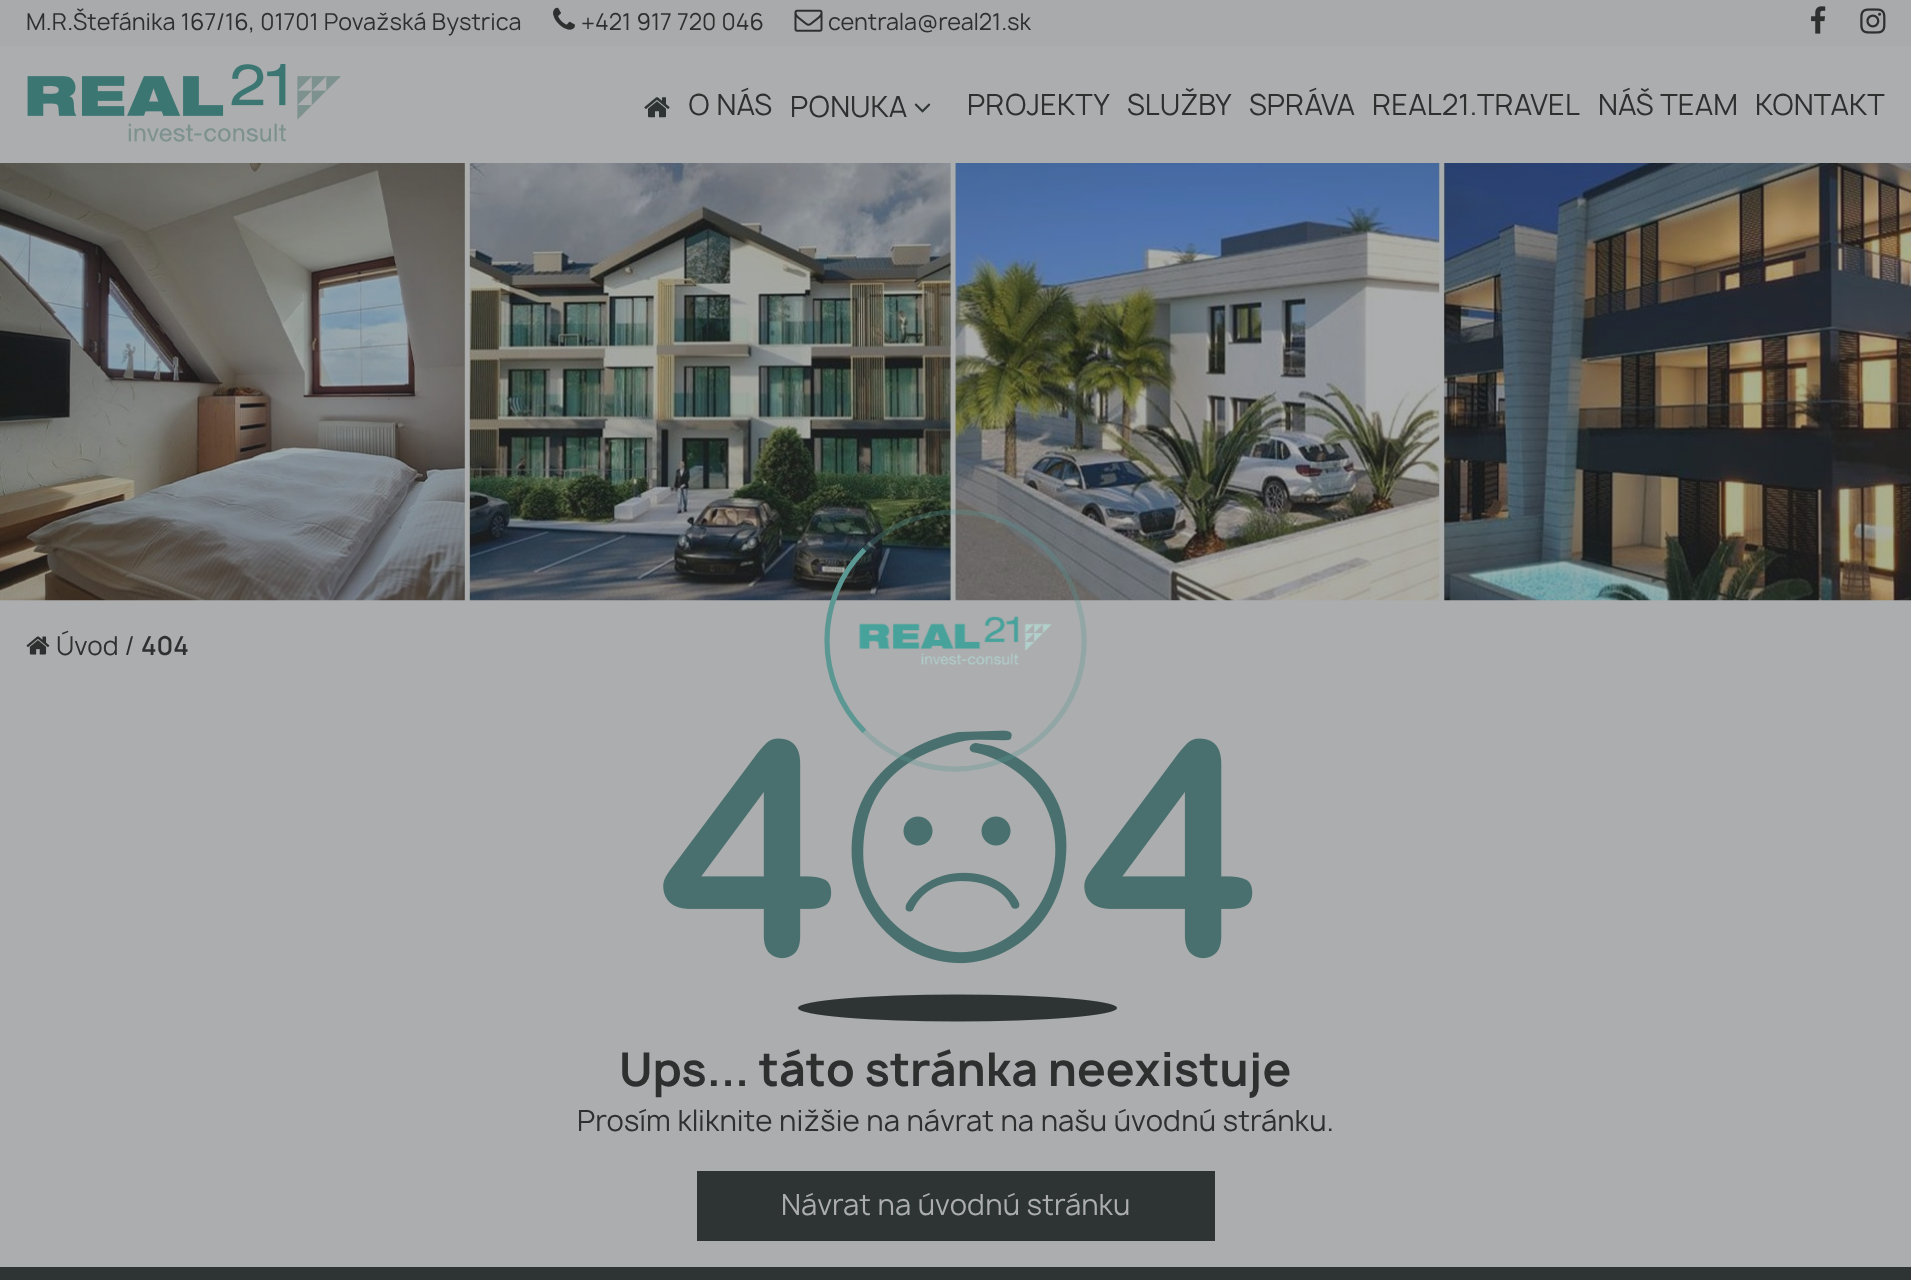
<svg xmlns="http://www.w3.org/2000/svg" xmlns:xlink="http://www.w3.org/1999/xlink" width="1911" height="1280" viewBox="0 0 1911 1280">
<style>
.cls-1{font:22.4px Manrope;fill:#2e3030}
.cls-2{font:28px Manrope;fill:#2e3030}
.cls-3{font:25px Manrope;fill:#2e3030}
.cls-4{font:600 25px Manrope;fill:#2e3030}
.cls-5{font:bold 44.75px Manrope;fill:#2e3030}
.cls-6{font:28px Manrope;fill:#abadae}
</style>
<rect width="100%" height="100%" fill="#abadae"/>
<rect fill="#a8aaab" x="0" y="0" width="1911" height="46"/>
<image xlink:href="image0.png" x="553" y="7" width="22" height="23"/>
<image xlink:href="image1.png" x="794" y="9" width="29" height="23"/>
<image xlink:href="image2.png" x="1811" y="6" width="15" height="28"/>
<image xlink:href="image3.png" x="1860" y="8" width="26" height="26"/>
<image xlink:href="image4.png" x="27" y="64" width="314" height="78"/>
<image xlink:href="image5.png" x="644" y="97" width="26" height="21"/>
<image xlink:href="image6.png" x="914" y="103" width="17" height="10"/>
<image xlink:href="image7.png" x="0" y="163" width="1911" height="438"/>
<image xlink:href="image8.png" x="26" y="636" width="24" height="19"/>
<image xlink:href="image9.png" x="663" y="730" width="590" height="292"/>
<rect fill="#2e3334" x="697" y="1171" width="518" height="70"/>
<rect fill="#2e3334" x="0" y="1267" width="1911" height="13"/>
<path fill="none" stroke="#5b9894" stroke-opacity="0.3" stroke-width="5.2" d="M864.5 549.5C888.5 525.5 921.5 512 955.5 512C1069.5 512 1127 650.5 1046.5 731.5C1028.5 749.5 1005.5 761.5 980.5 766.5C939 775 894.5 761.5 864.5 731.5"/>
<path fill="none" stroke="#5b9894" stroke-width="5.2" d="M864.5 731.5C814.5 681.5 814.5 599.5 864.5 549.5"/>
<image xlink:href="image10.png" x="859" y="616" width="193" height="49"/>
<text class="cls-1" x="26" y="30">M.R.Štefánika 167/16, 01701 Považská Bystrica</text>
<text class="cls-1" x="581" y="30">+421 917 720 046</text>
<text class="cls-1" x="828" y="30">centrala@real21.sk</text>
<text class="cls-2" x="688" y="115">O NÁS</text>
<text class="cls-2" x="790" y="117">PONUKA</text>
<text class="cls-2" x="967" y="115">PROJEKTY</text>
<text class="cls-2" x="1127" y="115">SLUŽBY</text>
<text class="cls-2" x="1249" y="115">SPRÁVA</text>
<text class="cls-2" x="1372" y="115">REAL21.TRAVEL</text>
<text class="cls-2" x="1598" y="115">NÁŠ TEAM</text>
<text class="cls-2" x="1755" y="115">KONTAKT</text>
<text class="cls-3" x="56" y="655">Úvod /</text>
<text class="cls-4" x="141" y="655">404</text>
<text class="cls-5" x="619" y="1086">Ups... táto stránka neexistuje</text>
<text class="cls-2" x="577" y="1131">Prosím kliknite nižšie na návrat na našu úvodnú stránku.</text>
<text class="cls-6" x="781" y="1215">Návrat na úvodnú stránku</text>
</svg>
